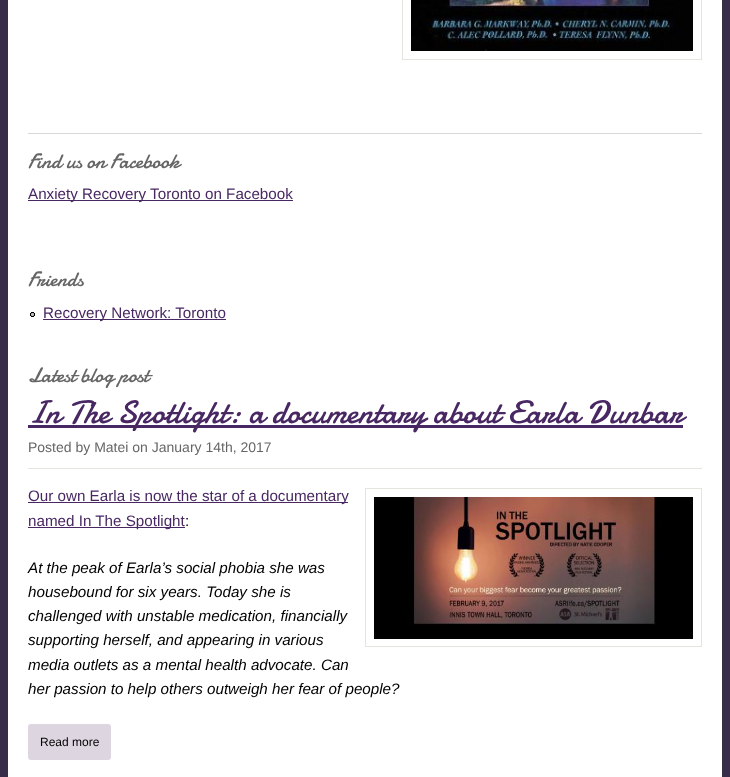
<svg xmlns="http://www.w3.org/2000/svg" xmlns:xlink="http://www.w3.org/1999/xlink" width="730" height="777" viewBox="0 0 730 777">
<style>
.cls-1{font:21px Damion;fill:#666666}
.cls-2{font:15.2px Liberation Sans;fill:#482762}
.cls-3{font:32.7px Damion;fill:#482762}
.cls-4{font:14px Liberation Sans;fill:#666666}
.cls-5{font:15.2px Liberation Sans;fill:#000000}
.cls-6{font:italic 15.2px Liberation Sans;fill:#000000}
.cls-7{font:12px Liberation Sans;fill:#000000}
</style>
<rect width="100%" height="100%" fill="#382d49"/>
<rect fill="#ffffff" x="8" y="0" width="714" height="777"/>
<rect fill="none" stroke="#e6e4de" x="402.5" y="-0.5" width="299" height="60"/>
<image xlink:href="image0.png" x="411" y="0" width="282" height="51"/>
<rect fill="#d8d8d8" x="28" y="133" width="674" height="1"/>
<rect fill="#482762" x="28" y="200" width="265" height="1"/>
<image xlink:href="image1.png" x="30" y="312" width="5" height="5"/>
<rect fill="#482762" x="43" y="319" width="183" height="1"/>
<rect fill="#e6e4de" x="28" y="468" width="674" height="1"/>
<rect fill="#482762" x="28" y="425" width="655" height="3"/>
<rect fill="#482762" x="28" y="502" width="320" height="1"/>
<rect fill="#482762" x="28" y="527" width="157" height="1"/>
<rect fill="none" stroke="#e6e4de" x="365.5" y="488.5" width="336" height="158"/>
<image xlink:href="image2.png" x="374" y="497" width="319" height="142"/>
<rect fill="#ddd6e0" x="28" y="724" width="83" height="36" rx="3"/>
<text class="cls-1" x="28" y="168">Find us on Facebook</text>
<text class="cls-2" x="28" y="199">Anxiety Recovery Toronto on Facebook</text>
<text class="cls-1" x="28" y="286">Friends</text>
<text class="cls-2" x="43" y="318">Recovery Network: Toronto</text>
<text class="cls-1" x="28" y="382">Latest blog post</text>
<text class="cls-3" x="28" y="423">In The Spotlight: a documentary about Earla Dunbar</text>
<text class="cls-4" x="28" y="452">Posted by Matei on January 14th, 2017</text>
<text class="cls-2"><tspan x="28" y="501">Our own Earla is now the star of a documentary</tspan><tspan x="28" y="526">named In The Spotlight</tspan></text>
<text class="cls-5" x="185" y="526">:</text>
<text class="cls-6"><tspan x="28" y="573">At the peak of Earla’s social phobia she was</tspan><tspan x="28" y="597">housebound for six years. Today she is</tspan><tspan x="28" y="621">challenged with unstable medication, financially</tspan><tspan x="28" y="645">supporting herself, and appearing in various</tspan><tspan x="28" y="670">media outlets as a mental health advocate. Can</tspan><tspan x="28" y="694">her passion to help others outweigh her fear of people?</tspan></text>
<text class="cls-7" x="40" y="746">Read more</text>
</svg>
